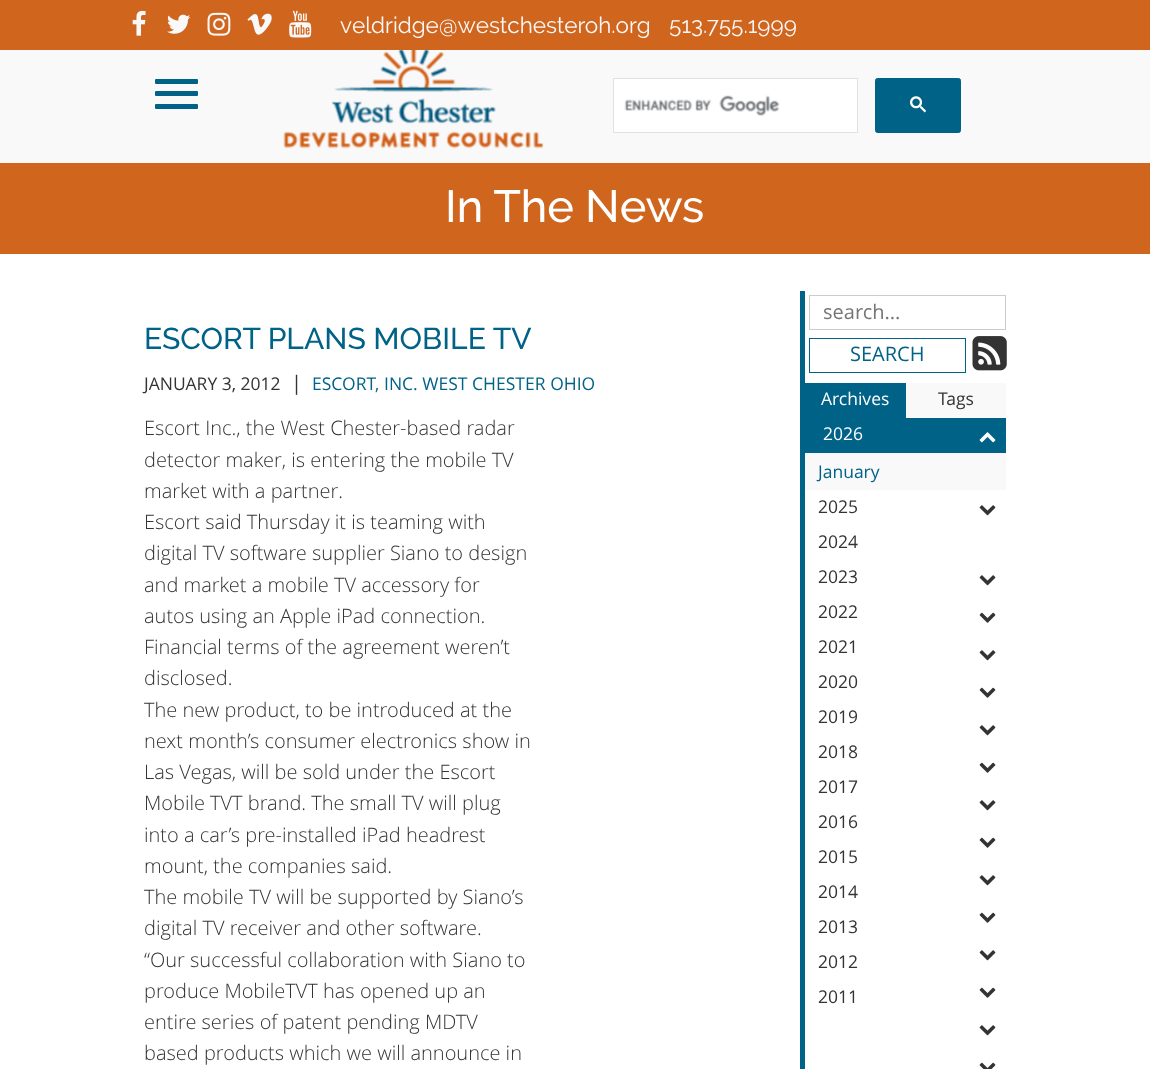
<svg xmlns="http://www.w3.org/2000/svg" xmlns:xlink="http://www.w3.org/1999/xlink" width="1150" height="1069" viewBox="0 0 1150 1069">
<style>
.cls-1{font:22.5px Raleway;fill:#f9f9f9}
.cls-2{font:500 45px Raleway;fill:#ffffff}
.cls-3{font:500 30px Raleway;fill:#006287}
.cls-4{font:17.5px Open Sans;fill:#333333}
.cls-5{font:20px Open Sans;fill:#333333}
.cls-6{font:17.5px Open Sans;fill:#006287}
.cls-7{font:17.5px Open Sans;fill:#285f8e}
.cls-8{font:300 20px Open Sans;fill:#333333}
.cls-9{font:20px Open Sans;fill:#757575}
.cls-10{font:20px Open Sans;fill:#006287}
.cls-11{font:17.5px Open Sans;fill:#ffffff}
</style>
<rect width="100%" height="100%" fill="#ffffff"/>
<rect fill="#d0651e" x="0" y="0" width="1150" height="50"/>
<image xlink:href="image0.png" x="132" y="10" width="14" height="26"/>
<image xlink:href="image1.png" x="167" y="14" width="24" height="20"/>
<image xlink:href="image2.png" x="207" y="12" width="24" height="24"/>
<image xlink:href="image3.png" x="247" y="13" width="25" height="22"/>
<image xlink:href="image4.png" x="289" y="10" width="23" height="28"/>
<rect fill="#f9f9f9" x="0" y="50" width="1150" height="113"/>
<rect fill="#006287" x="155" y="79" width="43" height="5" rx="1"/>
<rect fill="#006287" x="155" y="91" width="43" height="5" rx="1"/>
<rect fill="#006287" x="155" y="104" width="43" height="5" rx="1"/>
<image xlink:href="image5.png" x="283" y="50" width="261" height="99"/>
<rect fill="#ffffff" stroke="#dfe1e5" x="613.5" y="78.5" width="244" height="54"/>
<image xlink:href="image6.png" x="624" y="95" width="156" height="21"/>
<rect fill="#006287" stroke="#006287" x="875.5" y="78.5" width="85" height="54" rx="2"/>
<image xlink:href="image7.png" x="910" y="96" width="16" height="17"/>
<rect fill="#d0651e" x="0" y="163" width="1150" height="91"/>
<rect fill="#006287" x="800" y="291" width="5" height="778"/>
<rect fill="none" stroke="#cccccc" x="809.5" y="295.5" width="196" height="34"/>
<rect fill="none" stroke="#006287" x="809.5" y="338.5" width="156" height="34"/>
<image xlink:href="image8.png" x="972" y="336" width="35" height="35"/>
<rect fill="#f9f9f9" x="906" y="383" width="100" height="35"/>
<rect fill="#006287" x="805" y="383" width="101" height="35"/>
<rect fill="#006287" x="805" y="418" width="201" height="35"/>
<image xlink:href="image9.png" x="979" y="432" width="17" height="11"/>
<rect fill="#f9f9f9" x="805" y="453" width="201" height="37"/>
<image xlink:href="image10.png" x="979" y="505" width="17" height="11"/>
<image xlink:href="image10.png" x="979" y="575" width="17" height="11"/>
<image xlink:href="image11.png" x="979" y="612" width="17" height="11"/>
<image xlink:href="image10.png" x="979" y="650" width="17" height="11"/>
<image xlink:href="image11.png" x="979" y="687" width="17" height="11"/>
<image xlink:href="image10.png" x="979" y="725" width="17" height="11"/>
<image xlink:href="image11.png" x="979" y="762" width="17" height="11"/>
<image xlink:href="image10.png" x="979" y="800" width="17" height="11"/>
<image xlink:href="image11.png" x="979" y="837" width="17" height="11"/>
<image xlink:href="image10.png" x="979" y="875" width="17" height="11"/>
<image xlink:href="image11.png" x="979" y="912" width="17" height="11"/>
<image xlink:href="image10.png" x="979" y="950" width="17" height="11"/>
<image xlink:href="image11.png" x="979" y="987" width="17" height="11"/>
<image xlink:href="image10.png" x="979" y="1025" width="17" height="11"/>
<image xlink:href="image12.png" x="979" y="1062" width="17" height="7"/>
<text class="cls-1" x="340" y="33">veldridge@westchesteroh.org</text>
<text class="cls-1" x="669" y="33">513.755.1999</text>
<text class="cls-2" x="445" y="222">In The News</text>
<text class="cls-3" x="144" y="349">ESCORT PLANS MOBILE TV</text>
<text class="cls-4" x="144" y="390">JANUARY 3, 2012</text>
<text class="cls-5" x="291" y="390">|</text>
<text class="cls-6" x="312" y="390">ESCORT</text>
<text class="cls-6" x="384" y="390">INC. WEST CHESTER OHIO</text>
<text class="cls-7" x="375" y="390">,</text>
<text class="cls-8"><tspan x="144" y="435">Escort Inc., the West Chester-based radar</tspan><tspan x="144" y="467">detector maker, is entering the mobile TV</tspan><tspan x="144" y="498">market with a partner.</tspan><tspan x="144" y="529">Escort said Thursday it is teaming with</tspan><tspan x="144" y="560">digital TV software supplier Siano to design</tspan><tspan x="144" y="592">and market a mobile TV accessory for</tspan><tspan x="144" y="623">autos using an Apple iPad connection.</tspan><tspan x="144" y="654">Financial terms of the agreement weren’t</tspan><tspan x="144" y="685">disclosed.</tspan><tspan x="144" y="717">The new product, to be introduced at the</tspan><tspan x="144" y="748">next month’s consumer electronics show in</tspan><tspan x="144" y="779">Las Vegas, will be sold under the Escort</tspan><tspan x="144" y="810">Mobile TVT brand. The small TV will plug</tspan><tspan x="144" y="842">into a car’s pre-installed iPad headrest</tspan><tspan x="144" y="873">mount, the companies said.</tspan><tspan x="144" y="904">The mobile TV will be supported by Siano’s</tspan><tspan x="144" y="935">digital TV receiver and other software.</tspan><tspan x="144" y="967">“Our successful collaboration with Siano to</tspan><tspan x="144" y="998">produce MobileTVT has opened up an</tspan><tspan x="144" y="1029">entire series of patent pending MDTV</tspan><tspan x="144" y="1060">based products which we will announce in</tspan></text>
<text class="cls-9" x="823" y="319">search...</text>
<text class="cls-10" x="850" y="361">SEARCH</text>
<text class="cls-11" x="821" y="405">Archives</text>
<text class="cls-4" x="938" y="405">Tags</text>
<text class="cls-11" x="823" y="440">2026</text>
<text class="cls-6" x="818" y="478">January</text>
<text class="cls-4" x="818" y="513">2025</text>
<text class="cls-4" x="818" y="548">2024</text>
<text class="cls-4" x="818" y="583">2023</text>
<text class="cls-4" x="818" y="618">2022</text>
<text class="cls-4" x="818" y="653">2021</text>
<text class="cls-4" x="818" y="688">2020</text>
<text class="cls-4" x="818" y="723">2019</text>
<text class="cls-4" x="818" y="758">2018</text>
<text class="cls-4" x="818" y="793">2017</text>
<text class="cls-4" x="818" y="828">2016</text>
<text class="cls-4" x="818" y="863">2015</text>
<text class="cls-4" x="818" y="898">2014</text>
<text class="cls-4" x="818" y="933">2013</text>
<text class="cls-4" x="818" y="968">2012</text>
<text class="cls-4" x="818" y="1003">2011</text>
</svg>
